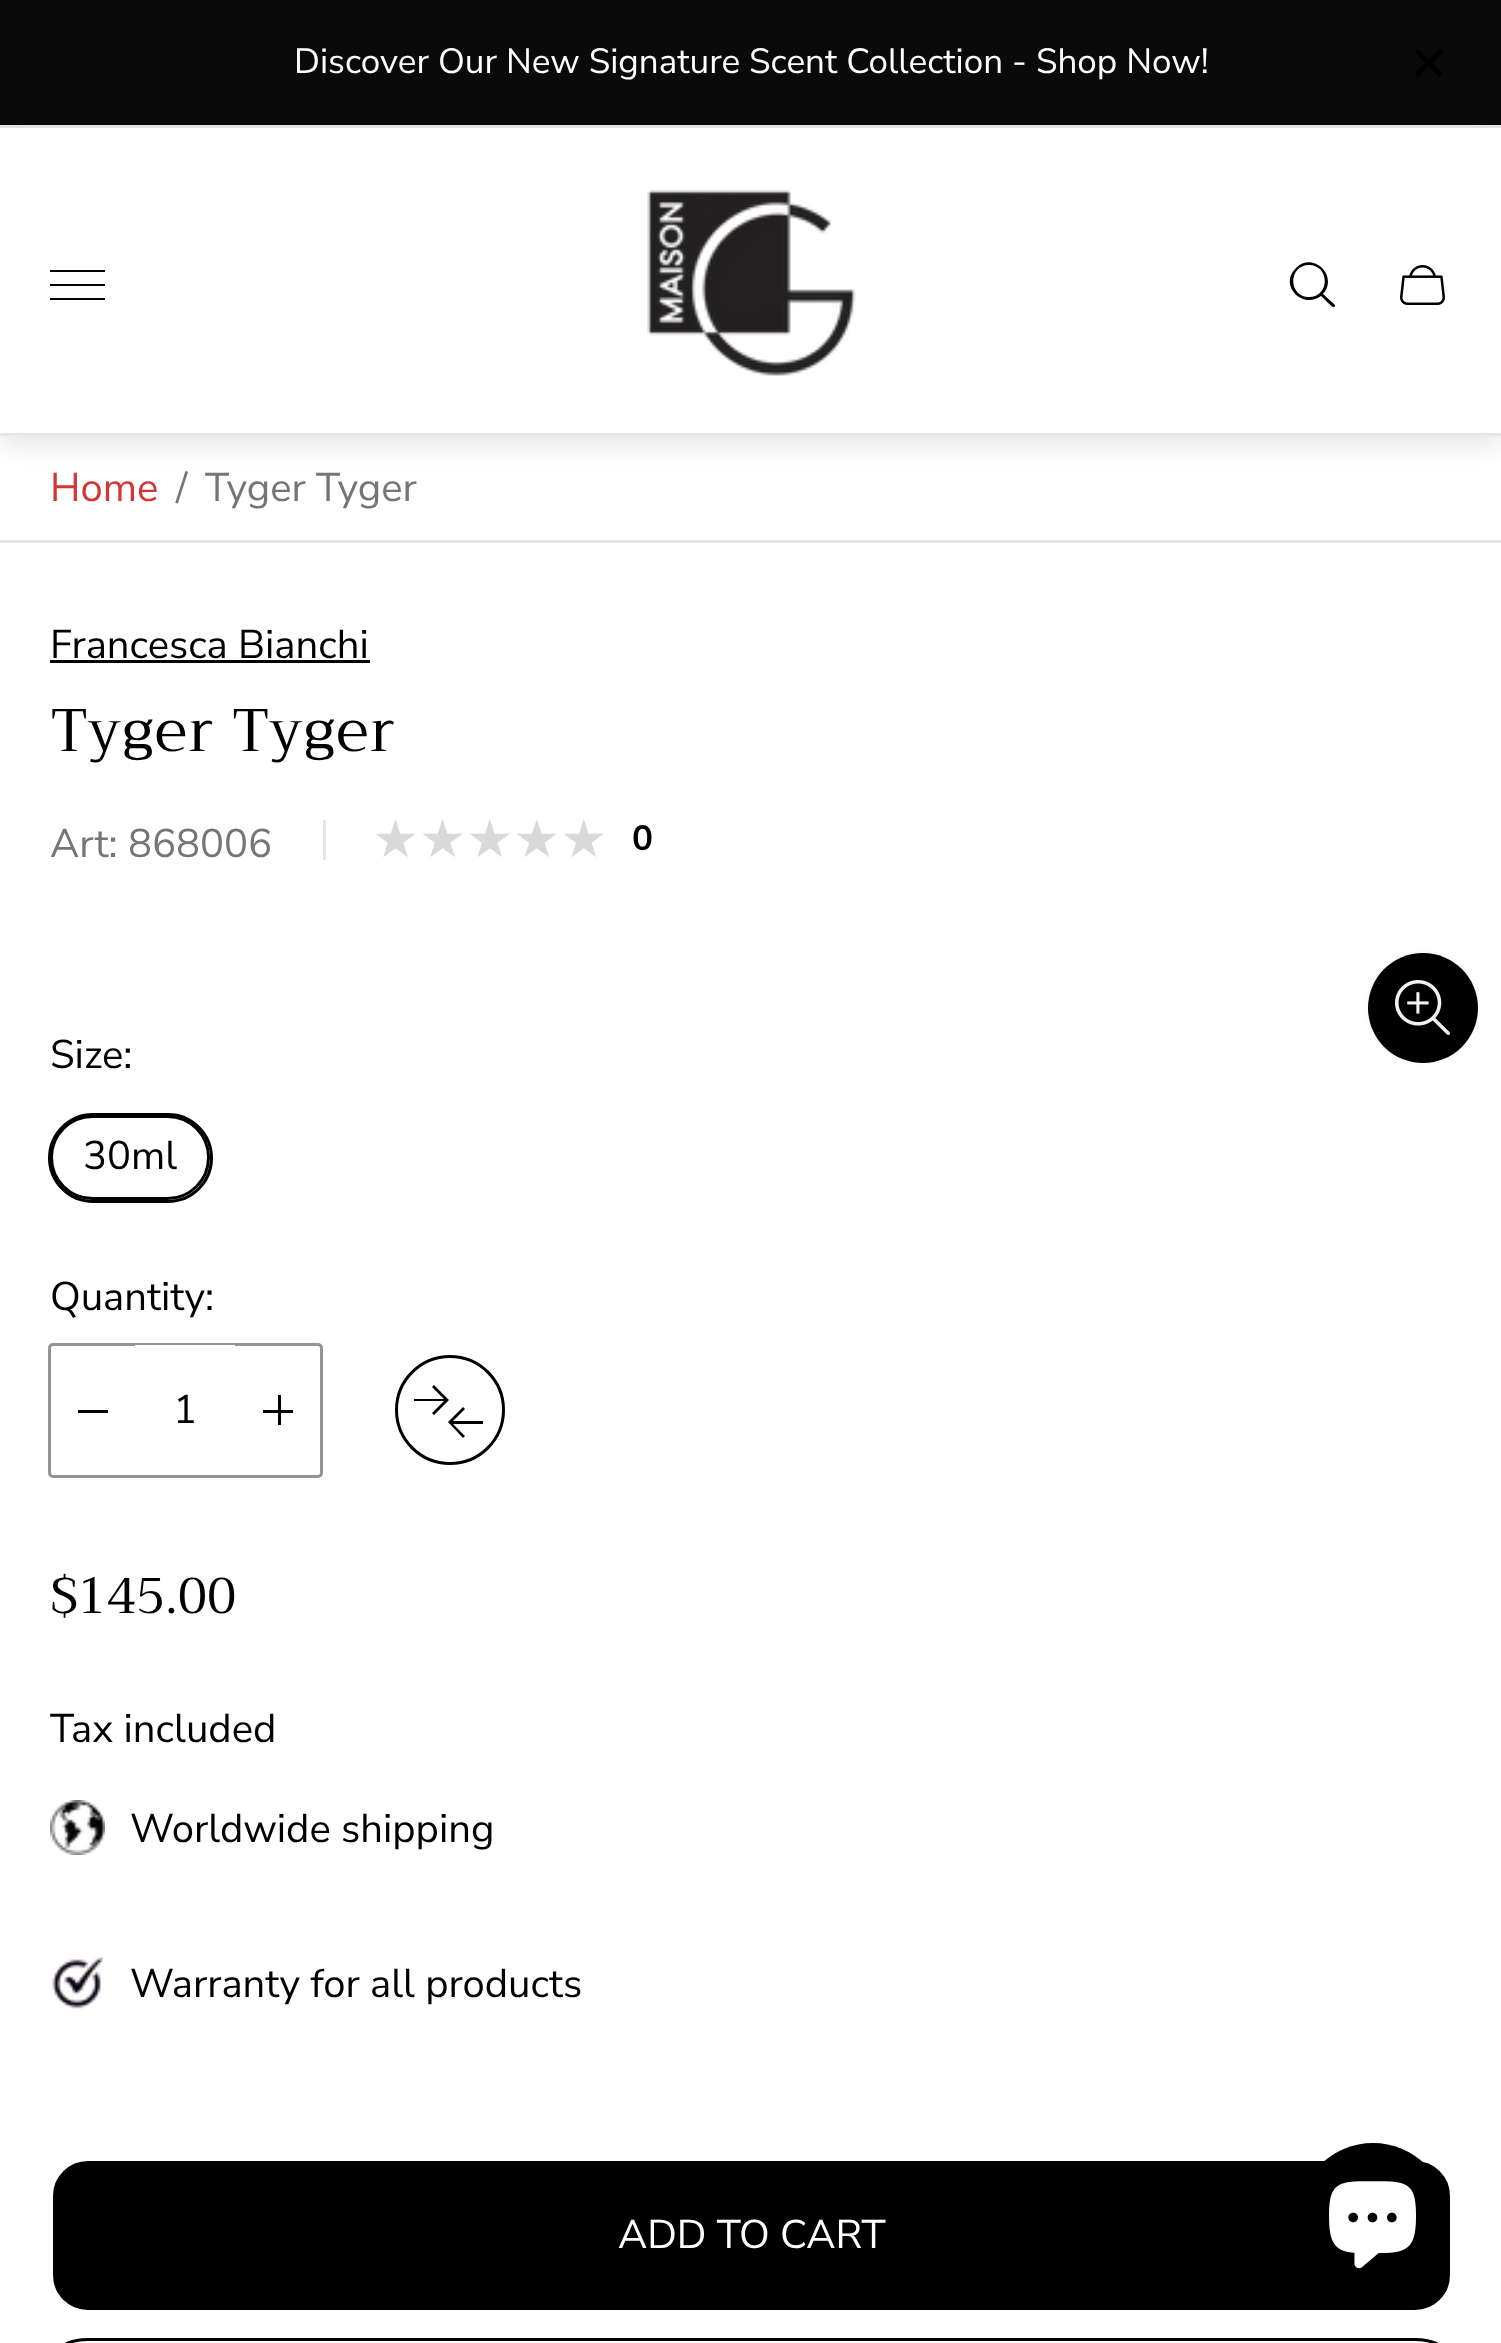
<svg xmlns="http://www.w3.org/2000/svg" xmlns:xlink="http://www.w3.org/1999/xlink" width="1501" height="2343" viewBox="0 0 1501 2343">
<style>
.cls-1{font:35px Nunito Sans;fill:#fefefe}
.cls-2{font:40px Nunito Sans;fill:#d33636}
.cls-3{font:40px Nunito Sans;fill:#757575}
.cls-4{font:40px Nunito Sans;fill:#000000}
.cls-5{font:60px Trirong;letter-spacing:1.25px;fill:#000000}
.cls-6{font:52.5px DejaVu Sans;fill:url(#g1)}
.cls-7{font:bold 35px Nunito Sans;fill:#000000}
.cls-8{font:50px Trirong;fill:#000000}
.cls-9{font:40px Nunito Sans;fill:#fefefe}
</style>
<defs>
<clipPath id="clip1"><path d="M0 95H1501V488H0ZM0 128H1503V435H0Z" clip-rule="evenodd"/></clipPath>
<linearGradient id="g1" gradientUnits="userSpaceOnUse" x1="372" y1="839" x2="607" y2="839"><stop offset="0" stop-color="#000000"/><stop offset="0" stop-color="#d9d9d9"/></linearGradient>
</defs>
<rect width="100%" height="100%" fill="#ffffff"/>
<rect fill="#0a0a0a" x="0" y="0" width="1501" height="125"/>
<rect fill="#e6e6e6" x="0" y="125" width="1501" height="3"/>
<path fill="#000000" d="M1439.5 49L1443 52.5L1418 77L1414.5 73.5Z"/>
<path fill="#000000" d="M1414.5 52.5L1418 49L1443 73.5L1439.5 77Z"/>
<g clip-path="url(#clip1)">
<rect fill="#000000" fill-opacity="0.1" filter="blur(14px)" x="0" y="138" width="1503" height="307"/>
</g>
<rect fill="#e6e6e6" x="0" y="433" width="1501" height="3"/>
<rect fill="#000000" x="50" y="270" width="55" height="2"/>
<rect fill="#000000" x="50" y="284" width="55" height="2"/>
<rect fill="#000000" x="50" y="298" width="55" height="2"/>
<image xlink:href="image0.png" x="647" y="189" width="209" height="187"/>
<path fill="#000000" d="M1335 305L1323 294C1339 276 1313 251 1296 268C1278 285 1303 310 1321 296C1323 297 1332 308 1334 307C1335 307 1335 306 1335 305ZM1309 297C1288 297 1288 265 1309 265C1330 265 1330 297 1309 297Z"/>
<image xlink:href="image1.png" x="1400" y="265" width="45" height="40"/>
<rect fill="#e6e6e6" x="0" y="540" width="1501" height="3"/>
<rect fill="#000000" x="50" y="660" width="320" height="3"/>
<rect fill="#e6e6e6" x="323" y="820" width="3" height="40"/>
<rect fill="#f5f1f1" filter="blur(4px)" x="1370" y="955" width="105" height="105" rx="52.5"/>
<circle fill="#000000" cx="1423" cy="1008" r="55"/>
<image xlink:href="image2.png" x="1395" y="980" width="55" height="55"/>
<rect fill="none" stroke="#000000" stroke-width="3" x="49.5" y="1114.5" width="162" height="87" rx="43.5"/>
<rect fill="none" stroke="#000000" stroke-width="3" x="51.5" y="1116.5" width="157" height="82" rx="41"/>
<rect fill="none" stroke="#949494" stroke-width="3" x="49.5" y="1344.5" width="272" height="132" rx="3.5"/>
<rect fill="#000000" x="78" y="1410" width="30" height="3"/>
<rect fill="#ffffff" x="135" y="1345" width="100" height="1"/>
<rect fill="#000000" x="263" y="1410" width="30" height="3"/>
<rect fill="#000000" x="278" y="1395" width="3" height="30"/>
<circle fill="none" stroke="#000000" stroke-width="3" cx="450" cy="1410" r="53.5"/>
<path fill="#000000" d="M463 1438L465 1436L453 1424H483V1421H453L465 1409L463 1407L448 1422ZM434 1415L449 1400L434 1385L432 1387L444 1399H414V1401H444L432 1413Z"/>
<image xlink:href="image3.png" x="50" y="1800" width="55" height="55"/>
<image xlink:href="image4.png" x="52" y="1957" width="52" height="52"/>
<rect fill="#000000" stroke="#ffffff" stroke-width="3" x="51.5" y="2159.5" width="1400" height="152" rx="36.5"/>
<rect fill="none" stroke="#000000" stroke-width="3" x="51.5" y="2339.5" width="1400" height="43" rx="36.5"/>
<circle fill="#000000" cx="1373" cy="2218" r="75"/>
<image xlink:href="image5.png" x="1329" y="2181" width="87" height="88"/>
<text class="cls-1" x="294" y="73">Discover Our New Signature Scent Collection - Shop Now!</text>
<text class="cls-2" x="50" y="501">Home</text>
<text class="cls-3" x="176" y="501">/</text>
<text class="cls-3" x="205" y="501">Tyger Tyger</text>
<text class="cls-4" x="50" y="658">Francesca Bianchi</text>
<text class="cls-5" x="50" y="751">Tyger Tyger</text>
<text class="cls-3" x="50" y="857">Art: 868006</text>
<text class="cls-6" x="372" y="857">★★★★★</text>
<text class="cls-7" x="632" y="850">0</text>
<text class="cls-4" x="50" y="1068">Size:</text>
<text class="cls-4" x="83" y="1169">30ml</text>
<text class="cls-4" x="50" y="1310">Quantity:</text>
<text class="cls-4" x="173" y="1423">1</text>
<text class="cls-8" x="50" y="1613">$145.00</text>
<text class="cls-4" x="50" y="1742">Tax included</text>
<text class="cls-4" x="130" y="1842">Worldwide shipping</text>
<text class="cls-4" x="130" y="1997">Warranty for all products</text>
<text class="cls-9" x="618" y="2248">ADD TO CART</text>
</svg>
